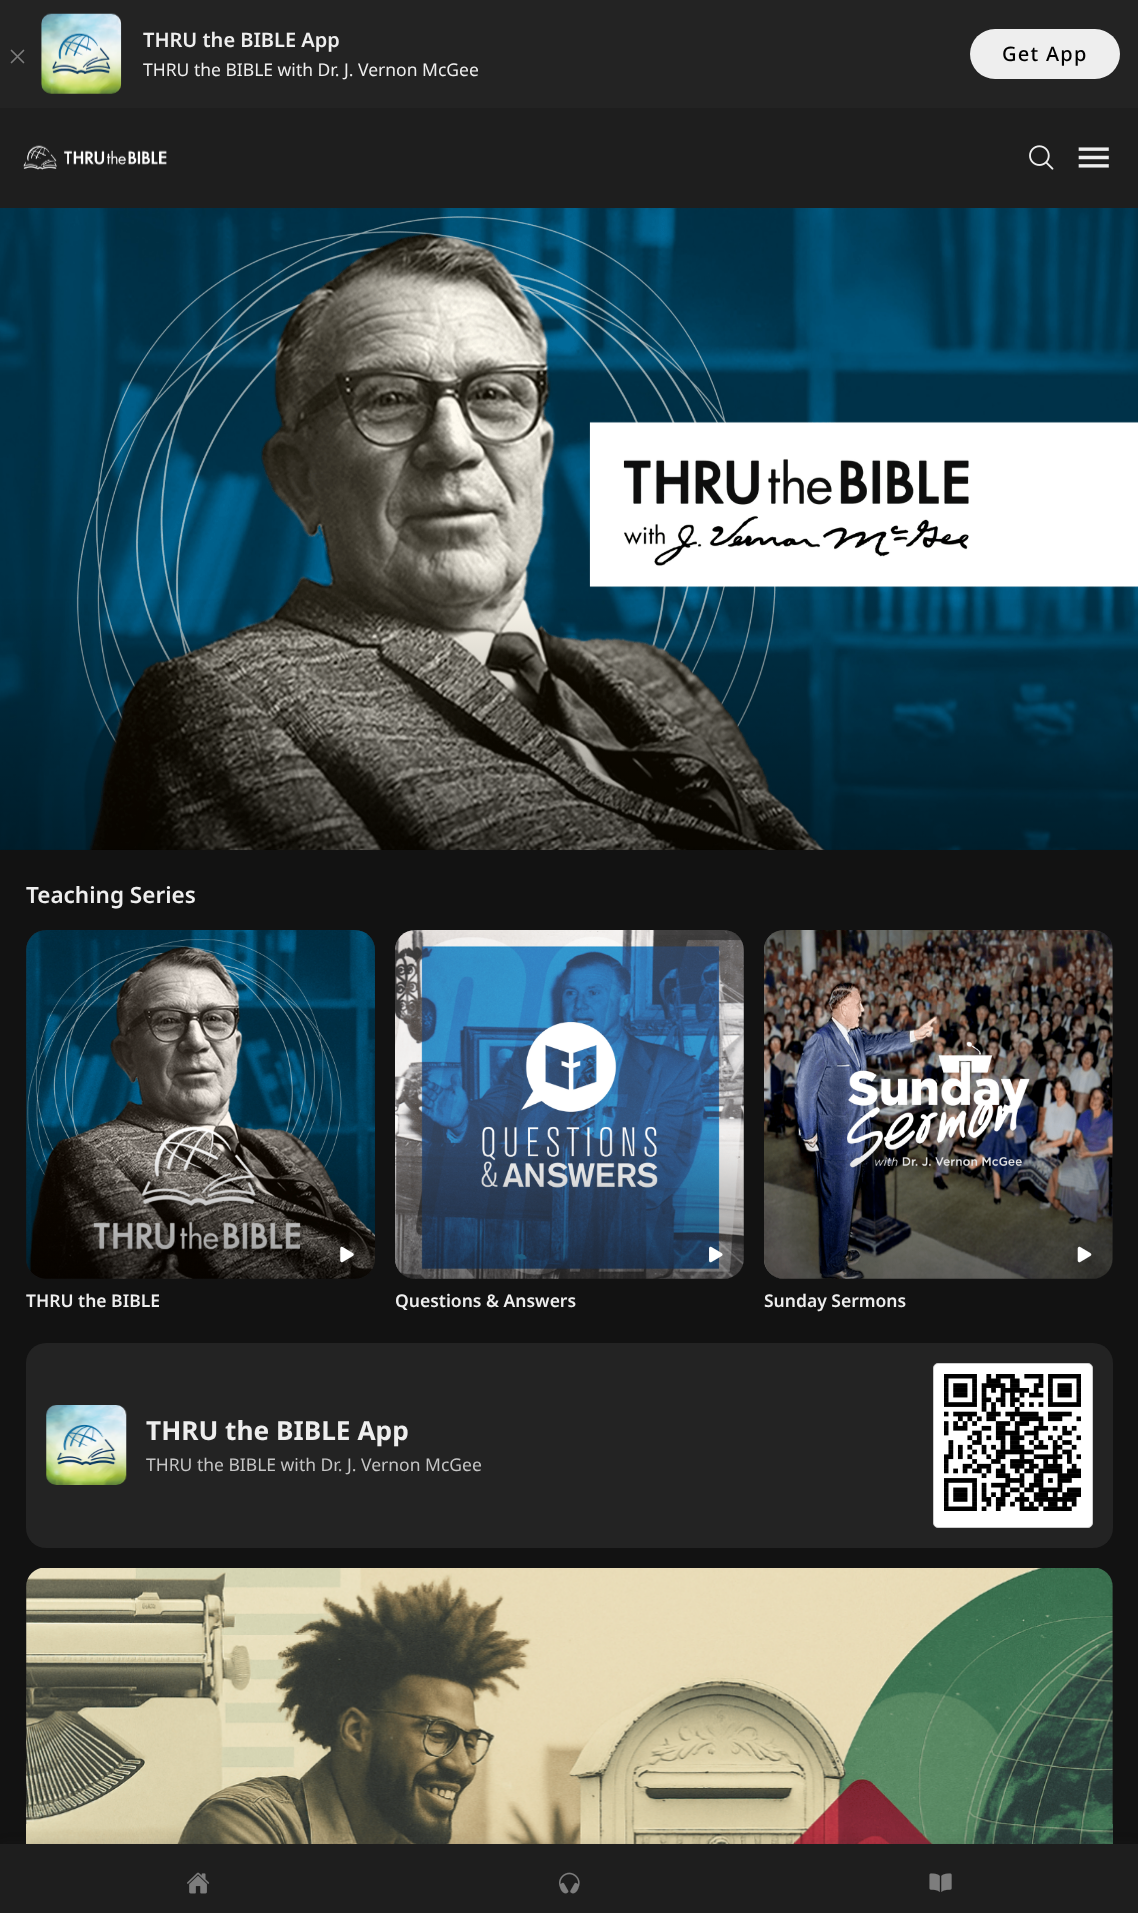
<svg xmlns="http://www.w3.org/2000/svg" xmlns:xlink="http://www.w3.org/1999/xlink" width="1138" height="1913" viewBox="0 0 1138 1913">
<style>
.cls-1{font:600 20px Noto Sans;fill:#eeeeee}
.cls-2{font:17.5px Noto Sans;fill:#eeeeee}
.cls-3{font:500 20px Noto Sans;letter-spacing:1.25px;fill:#000000}
.cls-4{font:600 22.5px Noto Sans;fill:#eeeeee}
.cls-5{font:600 17.5px Noto Sans;fill:#eeeeee}
.cls-6{font:bold 26.25px Noto Sans;fill:#eeeeee}
.cls-7{font:17.5px Noto Sans;fill:#c5c5c5}
</style>
<defs>
<linearGradient id="g1" gradientUnits="userSpaceOnUse" x1="569" y1="207" x2="569" y2="850"><stop offset="0.59" stop-color="#000000" stop-opacity="0"/><stop offset="1" stop-color="#000000" stop-opacity="0.44"/></linearGradient>
<linearGradient id="g2" gradientUnits="userSpaceOnUse" x1="201" y1="930" x2="201" y2="1279"><stop offset="0.59" stop-color="#000000" stop-opacity="0"/><stop offset="1" stop-color="#000000" stop-opacity="0.44"/></linearGradient>
<linearGradient id="g3" gradientUnits="userSpaceOnUse" x1="569" y1="930" x2="569" y2="1279"><stop offset="0.59" stop-color="#000000" stop-opacity="0"/><stop offset="1" stop-color="#000000" stop-opacity="0.44"/></linearGradient>
<linearGradient id="g4" gradientUnits="userSpaceOnUse" x1="938" y1="930" x2="938" y2="1279"><stop offset="0.59" stop-color="#000000" stop-opacity="0"/><stop offset="1" stop-color="#000000" stop-opacity="0.44"/></linearGradient>
</defs>
<rect width="100%" height="100%" fill="#121212"/>
<rect fill="#232323" x="0" y="0" width="1138" height="108"/>
<path fill="none" stroke="#7d7d7d" stroke-width="1.7" stroke-linecap="round" stroke-linejoin="round" d="M23.5 62.5L11.5 50.5M23.5 50.5L11.5 62.5"/>
<image xlink:href="image0.png" x="41" y="13" width="81" height="81"/>
<rect fill="#eeeeee" x="970" y="29" width="150" height="50" rx="25"/>
<rect fill="#1e1e1e" x="0" y="108" width="1138" height="100"/>
<image xlink:href="image1.png" x="23" y="145" width="144" height="25"/>
<image xlink:href="image2.png" x="1029" y="145" width="25" height="25"/>
<image xlink:href="image3.png" x="1078" y="147" width="31" height="21"/>
<image xlink:href="image4.png" x="0" y="208" width="1138" height="642"/>
<rect fill="url(#g1)" x="0" y="599" width="1138" height="251"/>
<rect fill="#232323" x="26" y="930" width="349" height="349" rx="20"/>
<image xlink:href="image5.png" x="26" y="930" width="349" height="349"/>
<rect fill="url(#g2)" x="26" y="930" width="349" height="349" rx="20"/>
<image xlink:href="image6.png" x="340" y="1246" width="14" height="17"/>
<rect fill="#232323" x="395" y="930" width="349" height="349" rx="20"/>
<image xlink:href="image7.png" x="395" y="930" width="349" height="349"/>
<rect fill="url(#g3)" x="395" y="930" width="349" height="349" rx="20"/>
<image xlink:href="image8.png" x="709" y="1246" width="14" height="17"/>
<rect fill="#232323" x="764" y="930" width="349" height="349" rx="20"/>
<image xlink:href="image9.png" x="764" y="930" width="349" height="349"/>
<rect fill="url(#g4)" x="764" y="930" width="349" height="349" rx="20"/>
<image xlink:href="image10.png" x="1077" y="1246" width="15" height="17"/>
<rect fill="#232323" x="26" y="1343" width="1087" height="205" rx="20"/>
<image xlink:href="image11.png" x="46" y="1405" width="81" height="80"/>
<rect fill="#ffffff" stroke="#cccccc" x="933.5" y="1363.5" width="159" height="164" rx="4.5"/>
<image xlink:href="image12.png" x="944" y="1374" width="137" height="137"/>
<path fill="#232323" d="M45 1568H1094C1104.5 1568 1113 1576.5 1113 1587V1844H26V1587C26 1576.5 34.5 1568 45 1568Z"/>
<image xlink:href="image13.png" x="26" y="1568" width="1087" height="276"/>
<rect fill="#262423" fill-opacity="0.14" filter="blur(6px)" x="0" y="1844" width="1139" height="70"/>
<rect fill="#1e1e1e" x="0" y="1844" width="1138" height="69"/>
<image xlink:href="image14.png" x="187" y="1872" width="23" height="22"/>
<image xlink:href="image15.png" x="559" y="1872" width="21" height="22"/>
<image xlink:href="image16.png" x="929" y="1873" width="23" height="19"/>
<text class="cls-1" x="143" y="47">THRU the BIBLE App</text>
<text class="cls-2" x="143" y="76">THRU the BIBLE with Dr. J. Vernon McGee</text>
<text class="cls-3" x="1002" y="61">Get App</text>
<text class="cls-4" x="26" y="903">Teaching Series</text>
<text class="cls-5" x="26" y="1307">THRU the BIBLE</text>
<text class="cls-5" x="395" y="1307">Questions &amp; Answers</text>
<text class="cls-5" x="764" y="1307">Sunday Sermons</text>
<text class="cls-6" x="146" y="1440">THRU the BIBLE App</text>
<text class="cls-7" x="146" y="1471">THRU the BIBLE with Dr. J. Vernon McGee</text>
</svg>
